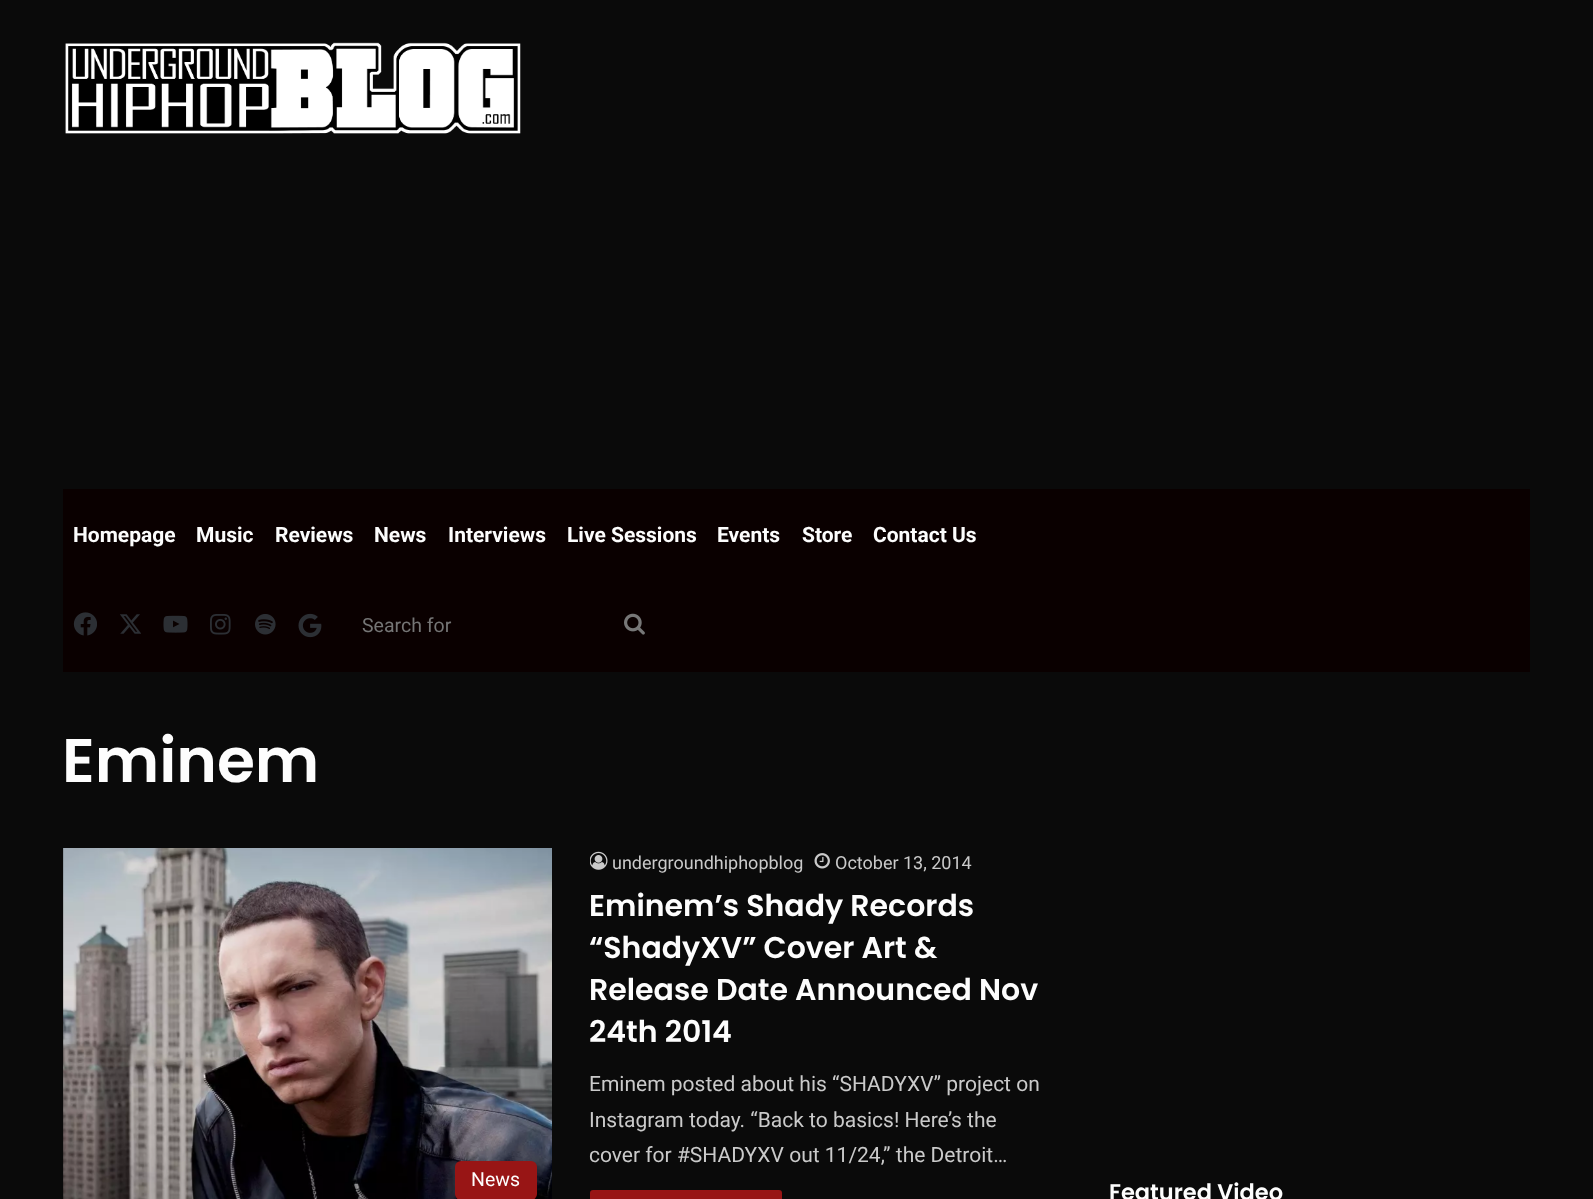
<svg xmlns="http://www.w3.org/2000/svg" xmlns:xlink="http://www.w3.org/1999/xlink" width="1593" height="1199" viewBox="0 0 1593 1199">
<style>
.cls-1{font:bold 21px Roboto;fill:#fdfdfd}
.cls-2{font:19.5px Roboto;fill:#757575}
.cls-3{font:600 61.5px Poppins;fill:#fdfdfd}
.cls-4{font:18px Roboto;fill:#cacaca}
.cls-5{font:600 30px Poppins;fill:#fdfdfd}
.cls-6{font:21px Roboto;fill:#cacaca}
.cls-7{font:19.5px Roboto;fill:#fdfdfd}
.cls-8{font:600 22.5px Poppins;fill:#fdfdfd}
</style>
<rect width="100%" height="100%" fill="#0a0a0a"/>
<image xlink:href="image0.png" x="65" y="42" width="456" height="92"/>
<rect fill="#0a0000" x="63" y="489" width="1467" height="183"/>
<image xlink:href="image1.png" x="73" y="612" width="24" height="24"/>
<image xlink:href="image2.png" x="120" y="614" width="21" height="20"/>
<image xlink:href="image3.png" x="163" y="615" width="25" height="18"/>
<image xlink:href="image4.png" x="210" y="614" width="21" height="21"/>
<image xlink:href="image5.png" x="255" y="614" width="21" height="21"/>
<image xlink:href="image6.png" x="298" y="613" width="24" height="25"/>
<image xlink:href="image7.png" x="624" y="613" width="21" height="22"/>
<image xlink:href="image8.png" x="590" y="851" width="18" height="19"/>
<image xlink:href="image9.png" x="814" y="853" width="16" height="16"/>
<rect fill="#981515" x="590" y="1190" width="192" height="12" rx="3"/>
<image xlink:href="image10.png" x="63" y="848" width="489" height="351"/>
<rect fill="#981515" x="455" y="1161" width="82" height="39" rx="6"/>
<text class="cls-1" x="73" y="542">Homepage</text>
<text class="cls-1" x="196" y="542">Music</text>
<text class="cls-1" x="275" y="542">Reviews</text>
<text class="cls-1" x="374" y="542">News</text>
<text class="cls-1" x="448" y="542">Interviews</text>
<text class="cls-1" x="567" y="542">Live Sessions</text>
<text class="cls-1" x="717" y="542">Events</text>
<text class="cls-1" x="802" y="542">Store</text>
<text class="cls-1" x="873" y="542">Contact Us</text>
<text class="cls-2" x="362" y="632">Search for</text>
<text class="cls-3" x="62" y="782">Eminem</text>
<text class="cls-4" x="612" y="869">undergroundhiphopblog</text>
<text class="cls-4" x="835" y="869">October 13, 2014</text>
<text class="cls-5"><tspan x="589" y="916">Eminem’s Shady Records</tspan><tspan x="589" y="958">“ShadyXV” Cover Art &amp;</tspan><tspan x="589" y="1000">Release Date Announced Nov</tspan><tspan x="589" y="1042">24th 2014</tspan></text>
<text class="cls-6"><tspan x="589" y="1091">Eminem posted about his “SHADYXV” project on</tspan><tspan x="589" y="1127">Instagram today. “Back to basics! Here’s the</tspan><tspan x="589" y="1162">cover for #SHADYXV out 11/24,” the Detroit…</tspan></text>
<text class="cls-7" x="471" y="1186">News</text>
<text class="cls-8" x="1109" y="1200">Featured Video</text>
</svg>
